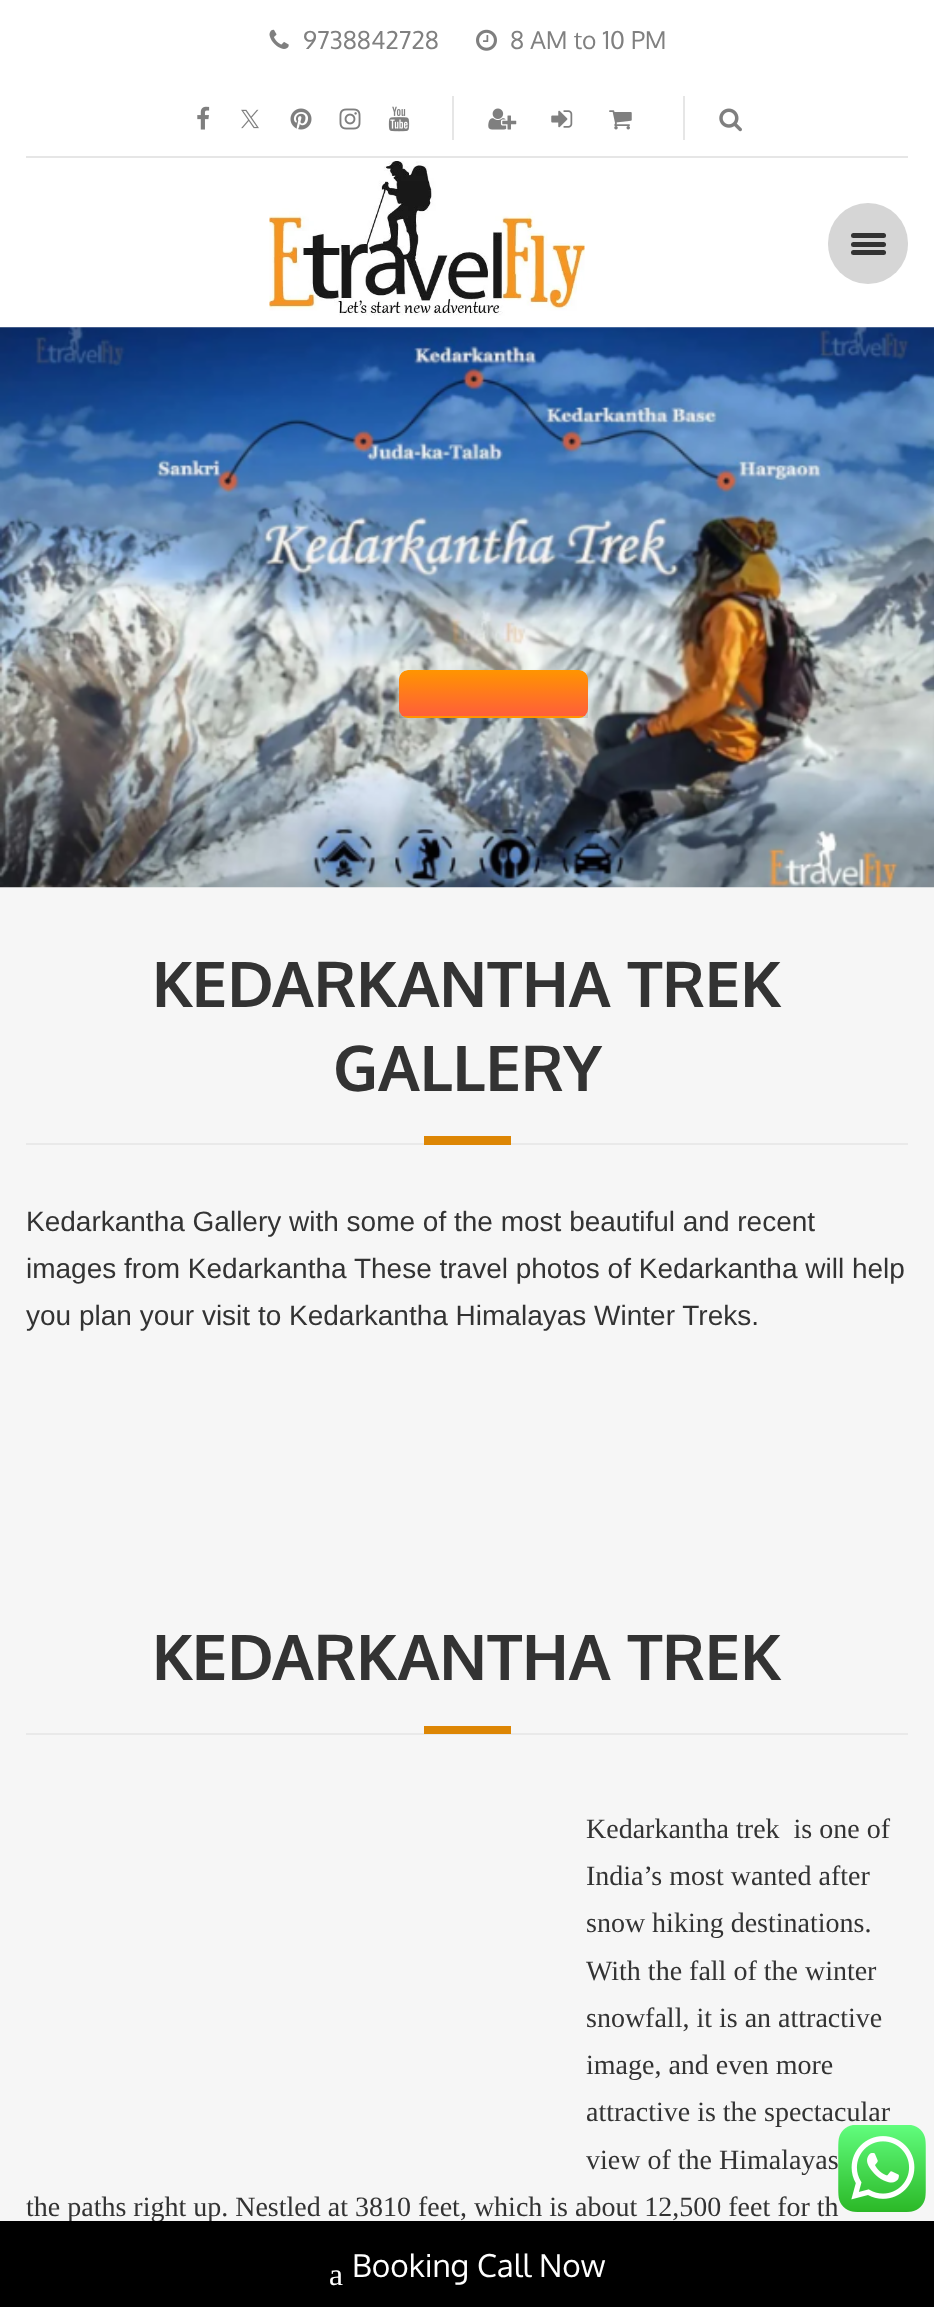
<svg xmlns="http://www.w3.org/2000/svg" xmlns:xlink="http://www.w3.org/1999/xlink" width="934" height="2307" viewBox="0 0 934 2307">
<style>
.cls-1{font:24.5px Oxygen;fill:#808080}
.cls-2{font:bold 63px Oxygen;fill:#333333}
.cls-3{font:28px Liberation Sans;fill:#333333}
.cls-4{font:28px Liberation Serif;fill:#333333}
.cls-5{font:31.5px Liberation Serif;fill:#ffffff}
.cls-6{font:31.5px Oxygen;fill:#ffffff}
</style>
<defs>
<clipPath id="clip1"><rect x="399" y="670" width="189" height="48"/></clipPath>
<clipPath id="clip2"><rect x="399" y="670" width="189" height="48" rx="9"/></clipPath>
<linearGradient id="g1" gradientUnits="userSpaceOnUse" x1="494" y1="670" x2="494" y2="716"><stop offset="0" stop-color="#ff9500"/><stop offset="1" stop-color="#ff5e3a"/></linearGradient>
<linearGradient id="g2" gradientUnits="userSpaceOnUse" x1="494" y1="716" x2="494" y2="761"><stop offset="0" stop-color="#ff9500"/><stop offset="1" stop-color="#ff5e3a"/></linearGradient>
</defs>
<rect width="100%" height="100%" fill="#f6f6f6"/>
<rect fill="#ffffff" x="0" y="0" width="934" height="327"/>
<image xlink:href="image0.png" x="269" y="29" width="20" height="20"/>
<image xlink:href="image1.png" x="476" y="29" width="21" height="22"/>
<image xlink:href="image2.png" x="197" y="106" width="13" height="24"/>
<image xlink:href="image3.png" x="241" y="109" width="18" height="20"/>
<image xlink:href="image4.png" x="290" y="108" width="22" height="22"/>
<image xlink:href="image5.png" x="339" y="108" width="22" height="22"/>
<image xlink:href="image6.png" x="388" y="106" width="22" height="26"/>
<rect fill="#e6e6e6" x="452" y="96" width="2" height="44"/>
<image xlink:href="image7.png" x="488" y="108" width="29" height="22"/>
<image xlink:href="image8.png" x="551" y="110" width="22" height="18"/>
<image xlink:href="image9.png" x="609" y="110" width="23" height="20"/>
<rect fill="#e6e6e6" x="683" y="96" width="2" height="44"/>
<image xlink:href="image10.png" x="719" y="108" width="23" height="24"/>
<rect fill="#e6e6e6" x="26" y="156" width="882" height="2"/>
<image xlink:href="image11.png" x="269" y="161" width="316" height="155"/>
<rect fill="#d6d6d6" x="828" y="203" width="80" height="81" rx="40"/>
<rect fill="#333333" x="851" y="242" width="35" height="5" rx="2.5"/>
<rect fill="#333333" x="851" y="233" width="35" height="5" rx="2.5"/>
<rect fill="#333333" x="851" y="250" width="35" height="5" rx="2.5"/>
<image xlink:href="image12.png" x="0" y="327" width="934" height="561"/>
<g clip-path="url(#clip1)">
<rect fill="#000000" fill-opacity="0.25" filter="blur(14px)" x="399" y="684" width="189" height="48" rx="9"/>
</g>
<g clip-path="url(#clip2)">
<path fill="url(#g1)" d="M408 670H579C584 670 588 674 588 679V716H399V679C399 674 403 670 408 670Z"/>
<rect fill="url(#g2)" x="399" y="716" width="189" height="2"/>
</g>
<rect fill="#e9e9e9" x="26" y="1143" width="882" height="2"/>
<rect fill="#dd8604" x="424" y="1136" width="87" height="9"/>
<rect fill="#e9e9e9" x="26" y="1733" width="882" height="2"/>
<rect fill="#dd8604" x="424" y="1726" width="87" height="8"/>
<text class="cls-1" x="303" y="49">9738842728</text>
<text class="cls-1" x="510" y="49">8 AM to 10 PM</text>
<text class="cls-2" x="152" y="1007">KEDARKANTHA TREK</text>
<text class="cls-2" x="333" y="1091">GALLERY</text>
<text class="cls-3"><tspan x="26" y="1231">Kedarkantha Gallery with some of the most beautiful and recent</tspan><tspan x="26" y="1278">images from Kedarkantha These travel photos of Kedarkantha will help</tspan><tspan x="26" y="1325">you plan your visit to Kedarkantha Himalayas Winter Treks.</tspan></text>
<text class="cls-2" x="152" y="1680">KEDARKANTHA TREK</text>
<text class="cls-4" xml:space="preserve"><tspan x="586" y="1838">Kedarkantha trek  is one of</tspan><tspan x="586" y="1885">India’s most wanted after</tspan><tspan x="586" y="1932">snow hiking destinations.</tspan><tspan x="586" y="1980">With the fall of the winter</tspan><tspan x="586" y="2027">snowfall, it is an attractive</tspan><tspan x="586" y="2074">image, and even more</tspan><tspan x="586" y="2121">attractive is the spectacular</tspan><tspan x="586" y="2169">view of the Himalayas</tspan></text>
<text class="cls-4" x="26" y="2216">the paths right up. Nestled at 3810 feet, which is about 12,500 feet for th</text>
<image xlink:href="image13.png" x="838" y="2125" width="88" height="87"/>
<rect fill="#000000" x="0" y="2221" width="934" height="86"/>
<text class="cls-5" x="329" y="2285">a</text>
<text class="cls-6" x="352" y="2277">Booking Call Now</text>
</svg>
